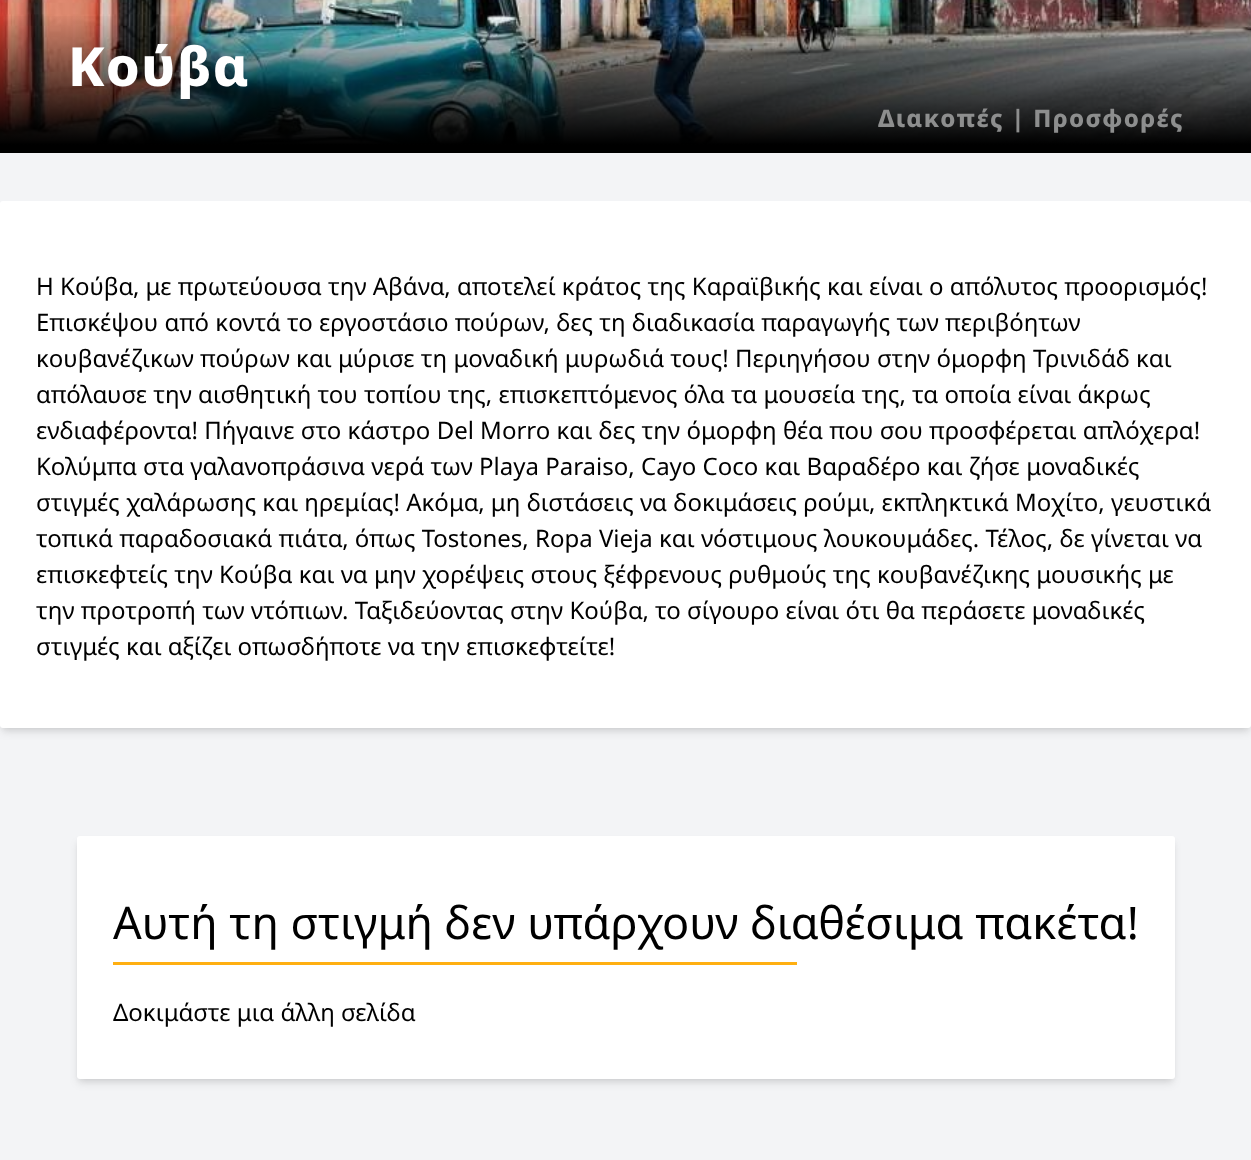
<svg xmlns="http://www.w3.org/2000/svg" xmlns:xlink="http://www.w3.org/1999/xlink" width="1251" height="1160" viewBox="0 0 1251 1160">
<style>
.cls-1{font:800 54px Noto Sans;letter-spacing:1.35px;fill:#ffffff}
.cls-2{font:800 24px Noto Sans;letter-spacing:1.35px;fill:#8d8e8e}
.cls-3{font:24px Noto Sans;fill:#000000}
.cls-4{font:45px Noto Sans;fill:#000000}
</style>
<defs>
<linearGradient id="g1" gradientUnits="userSpaceOnUse" x1="626" y1="13" x2="626" y2="153"><stop offset="0" stop-color="#000000" stop-opacity="0"/><stop offset="0.94" stop-color="#000000"/></linearGradient>
</defs>
<rect width="100%" height="100%" fill="#f3f4f6"/>
<image xlink:href="image0.png" x="0" y="0" width="1251" height="144"/>
<rect fill="url(#g1)" x="0" y="16" width="1251" height="137"/>
<rect fill="#000000" fill-opacity="0.1" filter="blur(3px)" x="3" y="207" width="1245" height="521"/>
<rect fill="#000000" fill-opacity="0.1" filter="blur(4.5px)" x="2" y="209" width="1248" height="523" rx="1.5"/>
<rect fill="#ffffff" x="0" y="201" width="1251" height="527" rx="3"/>
<rect fill="#000000" fill-opacity="0.1" filter="blur(3px)" x="80" y="842" width="1092" height="237"/>
<rect fill="#000000" fill-opacity="0.1" filter="blur(4.5px)" x="78" y="843" width="1095" height="240" rx="1.5"/>
<rect fill="#ffffff" x="77" y="836" width="1098" height="243" rx="3"/>
<rect fill="#ffaf11" x="113" y="962" width="684" height="3"/>
<text class="cls-1" x="68" y="86">Κούβα</text>
<text class="cls-2" x="878" y="127">Διακοπές | Προσφορές</text>
<text class="cls-3"><tspan x="36" y="295">Η Κούβα, με πρωτεύουσα την Αβάνα, αποτελεί κράτος της Καραϊβικής και είναι ο απόλυτος προορισμός!</tspan><tspan x="36" y="331">Επισκέψου από κοντά το εργοστάσιο πούρων, δες τη διαδικασία παραγωγής των περιβόητων</tspan><tspan x="36" y="367">κουβανέζικων πούρων και μύρισε τη μοναδική μυρωδιά τους! Περιηγήσου στην όμορφη Τρινιδάδ και</tspan><tspan x="36" y="403">απόλαυσε την αισθητική του τοπίου της, επισκεπτόμενος όλα τα μουσεία της, τα οποία είναι άκρως</tspan><tspan x="36" y="439">ενδιαφέροντα! Πήγαινε στο κάστρο Del Morro και δες την όμορφη θέα που σου προσφέρεται απλόχερα!</tspan><tspan x="36" y="475">Κολύμπα στα γαλανοπράσινα νερά των Playa Paraiso, Cayo Coco και Βαραδέρο και ζήσε μοναδικές</tspan><tspan x="36" y="511">στιγμές χαλάρωσης και ηρεμίας! Ακόμα, μη διστάσεις να δοκιμάσεις ρούμι, εκπληκτικά Μοχίτο, γευστικά</tspan><tspan x="36" y="547">τοπικά παραδοσιακά πιάτα, όπως Tostones, Ropa Vieja και νόστιμους λουκουμάδες. Τέλος, δε γίνεται να</tspan><tspan x="36" y="583">επισκεφτείς την Κούβα και να μην χορέψεις στους ξέφρενους ρυθμούς της κουβανέζικης μουσικής με</tspan><tspan x="36" y="619">την προτροπή των ντόπιων. Ταξιδεύοντας στην Κούβα, το σίγουρο είναι ότι θα περάσετε μοναδικές</tspan><tspan x="36" y="655">στιγμές και αξίζει οπωσδήποτε να την επισκεφτείτε!</tspan></text>
<text class="cls-4" x="113" y="939">Αυτή τη στιγμή δεν υπάρχουν διαθέσιμα πακέτα!</text>
<text class="cls-3" x="113" y="1021">Δοκιμάστε μια άλλη σελίδα</text>
</svg>
